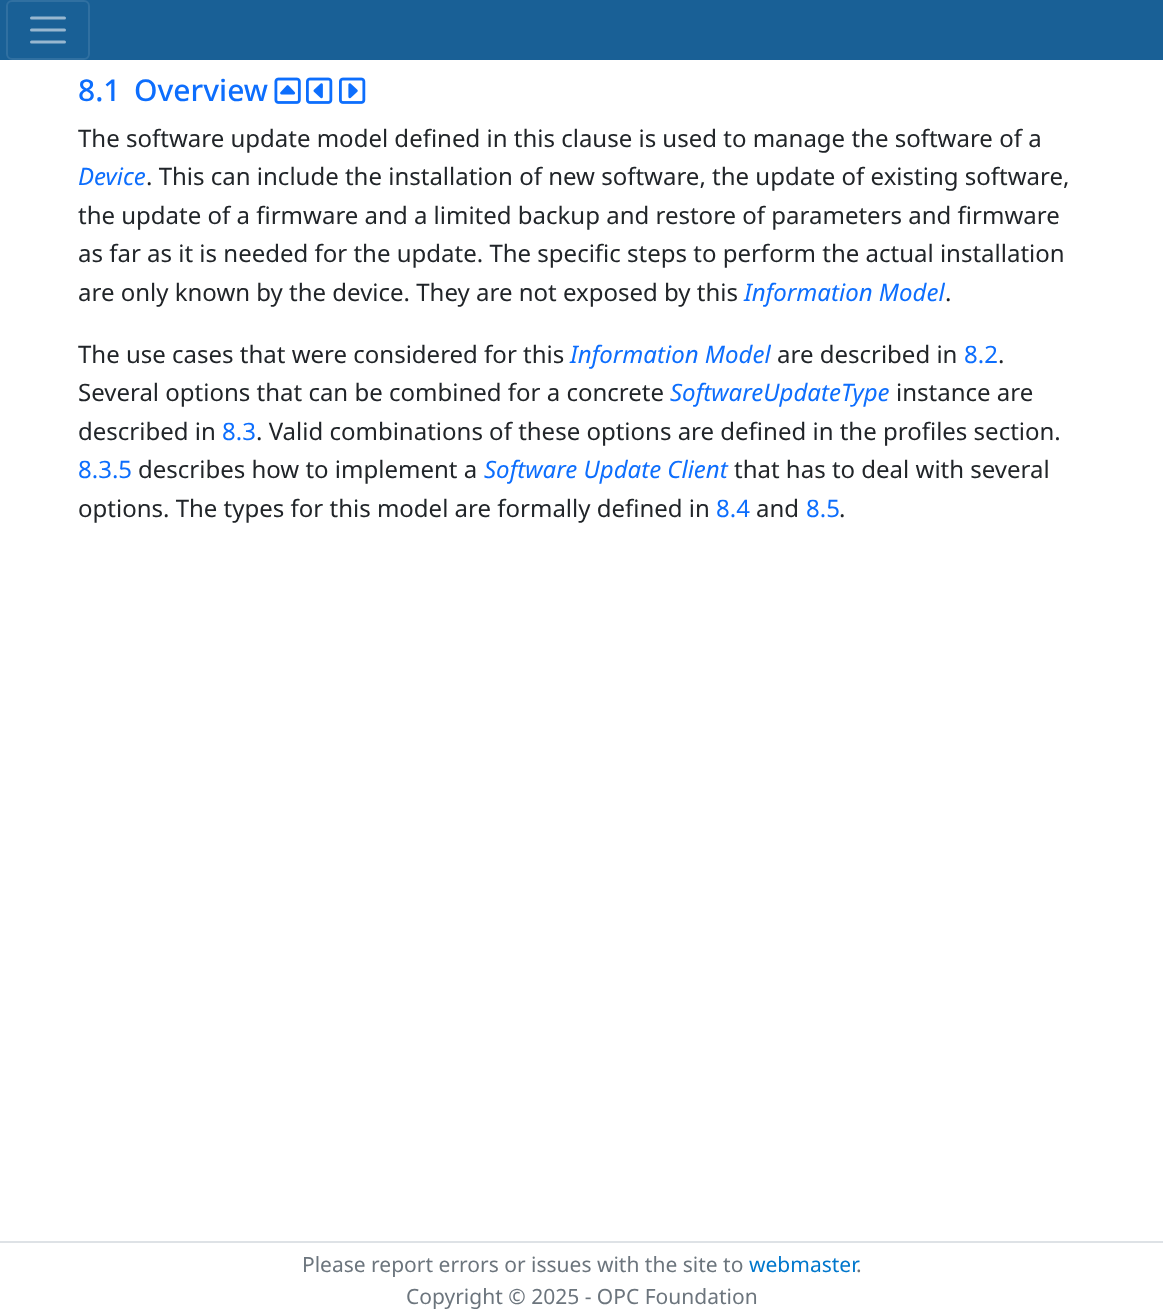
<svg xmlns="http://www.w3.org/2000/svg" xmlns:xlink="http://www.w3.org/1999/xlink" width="1163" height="1316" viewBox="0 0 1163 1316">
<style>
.cls-1{font:500 30px Noto Sans;fill:#0d6efd}
.cls-2{font:24px Noto Sans;fill:#212529}
.cls-3{font:italic 24px Noto Sans;fill:#0d6efd}
.cls-4{font:24px Noto Sans;fill:#0d6efd}
.cls-5{font:21px Noto Sans;fill:#6c757d}
.cls-6{font:21px Noto Sans;fill:#0077cc}
</style>
<rect width="100%" height="100%" fill="#ffffff"/>
<rect fill="#196096" x="0" y="0" width="1163" height="60"/>
<rect fill="none" stroke="#3070a1" stroke-width="2" x="7" y="1" width="82" height="58" rx="5"/>
<path fill="none" stroke="#98b7d0" stroke-width="3" stroke-linecap="round" d="M31.5 18H64.5M31.5 30H64.5M31.5 42H64.5"/>
<image xlink:href="image0.png" x="274" y="77" width="27" height="27"/>
<image xlink:href="image1.png" x="306" y="77" width="27" height="27"/>
<image xlink:href="image2.png" x="339" y="77" width="27" height="27"/>
<rect fill="#dee2e6" x="0" y="1241" width="1163" height="2"/>
<text class="cls-1" x="78" y="101">8.1</text>
<text class="cls-1" x="134" y="101">Overview</text>
<text class="cls-2" x="78" y="147">The software update model defined in this clause is used to manage the software of a</text>
<text class="cls-3" x="78" y="185">Device</text>
<text class="cls-2" x="146" y="185">. This can include the installation of new software, the update of existing software,</text>
<text class="cls-2"><tspan x="78" y="224">the update of a firmware and a limited backup and restore of parameters and firmware</tspan><tspan x="78" y="262">as far as it is needed for the update. The specific steps to perform the actual installation</tspan><tspan x="78" y="301">are only known by the device. They are not exposed by this</tspan></text>
<text class="cls-3" x="744" y="301">Information Model</text>
<text class="cls-2" x="945" y="301">.</text>
<text class="cls-2" x="78" y="363">The use cases that were considered for this</text>
<text class="cls-3" x="570" y="363">Information Model</text>
<text class="cls-2" x="777" y="363">are described in</text>
<text class="cls-4" x="964" y="363">8.2</text>
<text class="cls-2" x="998" y="363">.</text>
<text class="cls-2" x="78" y="401">Several options that can be combined for a concrete</text>
<text class="cls-3" x="670" y="401">SoftwareUpdateType</text>
<text class="cls-2" x="896" y="401">instance are</text>
<text class="cls-2" x="78" y="440">described in</text>
<text class="cls-4" x="222" y="440">8.3</text>
<text class="cls-2" x="256" y="440">. Valid combinations of these options are defined in the profiles section.</text>
<text class="cls-4" x="78" y="478">8.3.5</text>
<text class="cls-2" x="138" y="478">describes how to implement a</text>
<text class="cls-3" x="484" y="478">Software Update Client</text>
<text class="cls-2" x="734" y="478">that has to deal with several</text>
<text class="cls-2" x="78" y="517">options. The types for this model are formally defined in</text>
<text class="cls-4" x="716" y="517">8.4</text>
<text class="cls-2" x="756" y="517">and</text>
<text class="cls-4" x="806" y="517">8.5</text>
<text class="cls-2" x="839" y="517">.</text>
<text class="cls-5" x="302" y="1272">Please report errors or issues with the site to</text>
<text class="cls-6" x="749" y="1272">webmaster</text>
<text class="cls-5" x="856" y="1272">.</text>
<text class="cls-5" x="406" y="1304">Copyright © 2025 - OPC Foundation</text>
</svg>
